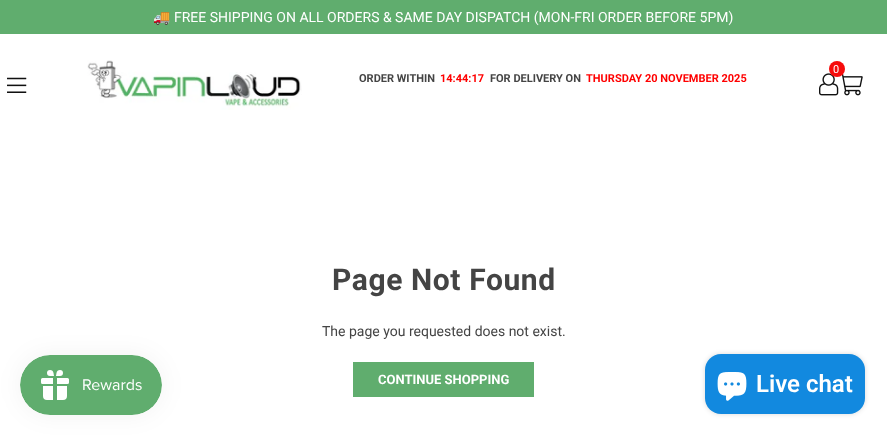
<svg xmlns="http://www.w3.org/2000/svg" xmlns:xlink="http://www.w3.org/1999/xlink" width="887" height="435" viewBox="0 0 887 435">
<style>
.cls-1{font:14px Noto Color Emoji;fill:#ffffff}
.cls-2{font:14px Roboto;fill:#ffffff}
.cls-3{font:11px Roboto;fill:#ffffff}
.cls-4{font:bold 11px Roboto;fill:#444444}
.cls-5{font:bold 11px Roboto;fill:#ff0000}
.cls-6{font:bold 30px Roboto;letter-spacing:0.6px;fill:#444444}
.cls-7{font:14px Roboto;fill:#444444}
.cls-8{font:bold 13px Roboto;fill:#ffffff}
.cls-9{font:600 24px Roboto;fill:#ffffff}
</style>
<rect width="100%" height="100%" fill="#ffffff"/>
<rect fill="#60ad6e" x="0" y="0" width="887" height="34"/>
<image xlink:href="image0.png" x="87" y="60" width="215" height="50"/>
<image xlink:href="image1.png" x="842" y="74" width="21" height="22"/>
<image xlink:href="image2.png" x="819" y="73" width="20" height="23"/>
<circle fill="#f60c0c" cx="837" cy="69" r="8"/>
<image xlink:href="image3.png" x="7" y="77" width="20" height="16"/>
<rect fill="#000000" fill-opacity="0.05" filter="blur(12.5px)" x="20" y="355" width="142" height="60" rx="30"/>
<image xlink:href="image4.png" x="20" y="355" width="142" height="60"/>
<rect fill="#60ad6e" x="353" y="362" width="181" height="35"/>
<rect fill="#000000" fill-opacity="0.15" filter="blur(2.5px)" x="705" y="354" width="160" height="60" rx="16"/>
<rect fill="#1289df" x="705" y="354" width="160" height="60" rx="16"/>
<image xlink:href="image5.png" x="717" y="372" width="30" height="29"/>
<text class="cls-1" x="153" y="22">🚚</text>
<text class="cls-2" x="174" y="22">FREE SHIPPING ON ALL ORDERS &amp; SAME DAY DISPATCH (MON-FRI ORDER BEFORE 5PM)</text>
<text class="cls-3" x="833" y="73">0</text>
<text class="cls-4" x="359" y="82">ORDER WITHIN</text>
<text class="cls-5" x="440" y="82">14:44:17</text>
<text class="cls-4" x="490" y="82">FOR DELIVERY ON</text>
<text class="cls-5" x="586" y="82">THURSDAY 20 NOVEMBER 2025</text>
<text class="cls-6" x="332" y="290">Page Not Found</text>
<text class="cls-7" x="322" y="336">The page you requested does not exist.</text>
<text class="cls-8" x="378" y="384">CONTINUE SHOPPING</text>
<text class="cls-9" x="756" y="392">Live chat</text>
</svg>
